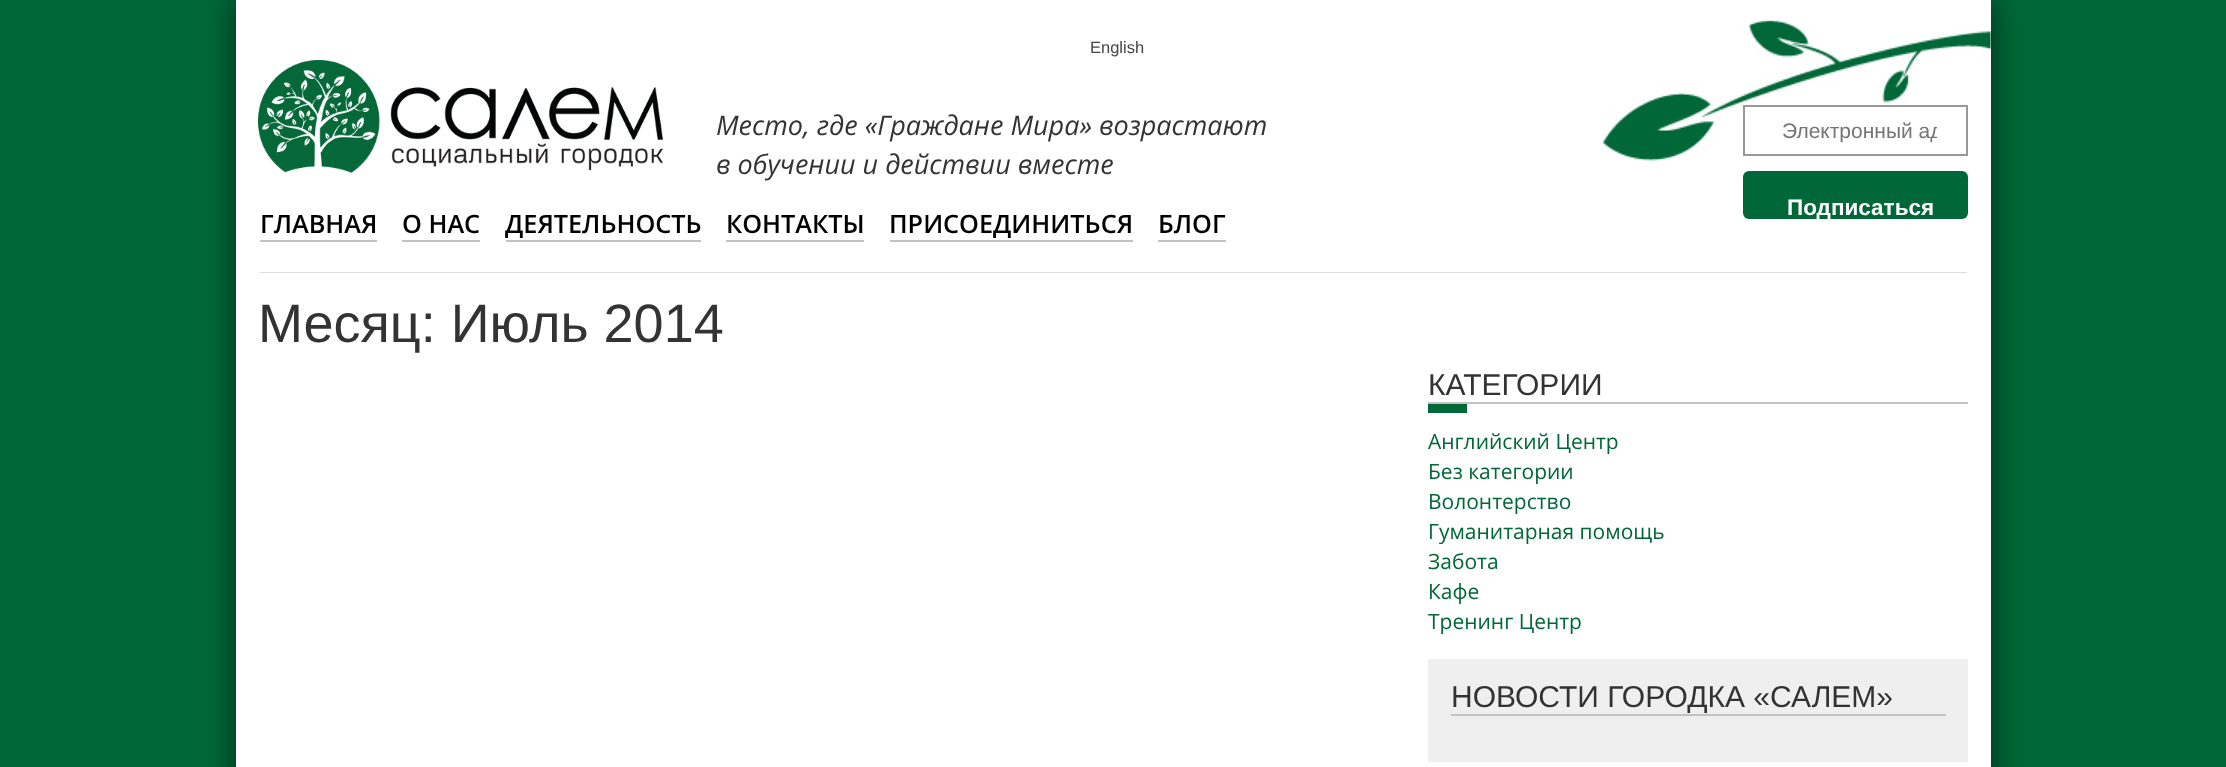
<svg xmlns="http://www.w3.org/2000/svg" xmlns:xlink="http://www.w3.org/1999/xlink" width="2226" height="767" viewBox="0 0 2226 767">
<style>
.cls-1{font:16.5px Liberation Sans;fill:#444444}
.cls-2{font:italic 27px Open Sans;fill:#333333}
.cls-3{font:21px Liberation Sans;fill:#757575}
.cls-4{font:bold 22.5px Liberation Sans;fill:#ffffff}
.cls-5{font:600 25.25px Open Sans;fill:#000000}
.cls-6{font:54px Liberation Sans;fill:#333333}
.cls-7{font:30px Liberation Sans;fill:#333333}
.cls-8{font:21px Open Sans;fill:#006738}
</style>
<defs>
<clipPath id="clip1"><rect x="1775" y="119" width="162" height="24"/></clipPath>
<clipPath id="clip2"><rect x="1743" y="171" width="225" height="48" rx="6"/></clipPath>
</defs>
<rect width="100%" height="100%" fill="#006738"/>
<rect fill="#000000" fill-opacity="0.6" filter="blur(15px)" x="236" y="0" width="1755" height="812"/>
<rect fill="#ffffff" x="236" y="0" width="1755" height="767"/>
<image xlink:href="image0.png" x="1603" y="20" width="388" height="141"/>
<image xlink:href="image1.png" x="258" y="60" width="405" height="114"/>
<rect fill="#ffffff" x="1886" y="107" width="1" height="1"/>
<rect fill="none" stroke="#999999" stroke-width="2" x="1744" y="106" width="223" height="49"/>
<rect fill="#006738" x="1743" y="171" width="225" height="48" rx="6"/>
<path fill="#dedede" d="M1968 273H258L260 272H1966Z"/>
<rect fill="#c3c3c3" x="260" y="240" width="117" height="2"/>
<rect fill="#c3c3c3" x="402" y="240" width="78" height="2"/>
<rect fill="#c3c3c3" x="506" y="240" width="195" height="2"/>
<rect fill="#c3c3c3" x="726" y="240" width="138" height="2"/>
<rect fill="#c3c3c3" x="890" y="240" width="243" height="2"/>
<rect fill="#c3c3c3" x="1158" y="240" width="68" height="2"/>
<rect fill="#006738" x="1428" y="404" width="39" height="9"/>
<rect fill="#c3c3c3" x="1428" y="402" width="540" height="2"/>
<rect fill="#efefef" x="1428" y="659" width="540" height="103"/>
<rect fill="#c3c3c3" x="1451" y="714" width="495" height="2"/>
<text class="cls-1" x="1090" y="53">English</text>
<text class="cls-2"><tspan x="716" y="135">Место, где «Граждане Мира» возрастают</tspan><tspan x="716" y="174">в обучении и действии вместе</tspan></text>
<g clip-path="url(#clip1)">
<text class="cls-3" x="1782" y="138">Электронный ад</text>
</g>
<g clip-path="url(#clip2)">
<text class="cls-4" x="1787" y="215">Подписаться</text>
</g>
<text class="cls-5" x="260" y="233">ГЛАВНАЯ</text>
<text class="cls-5" x="402" y="233">О НАС</text>
<text class="cls-5" x="505" y="233">ДЕЯТЕЛЬНОСТЬ</text>
<text class="cls-5" x="726" y="233">КОНТАКТЫ</text>
<text class="cls-5" x="889" y="233">ПРИСОЕДИНИТЬСЯ</text>
<text class="cls-5" x="1158" y="233">БЛОГ</text>
<text class="cls-6" x="258" y="342">Месяц: Июль 2014</text>
<text class="cls-7" x="1428" y="395">КАТЕГОРИИ</text>
<text class="cls-8"><tspan x="1428" y="449">Английский Центр</tspan><tspan x="1428" y="479">Без категории</tspan><tspan x="1428" y="509">Волонтерство</tspan><tspan x="1428" y="539">Гуманитарная помощь</tspan><tspan x="1428" y="569">Забота</tspan><tspan x="1428" y="599">Кафе</tspan><tspan x="1428" y="629">Тренинг Центр</tspan></text>
<text class="cls-7" x="1451" y="707">НОВОСТИ ГОРОДКА «САЛЕМ»</text>
</svg>
